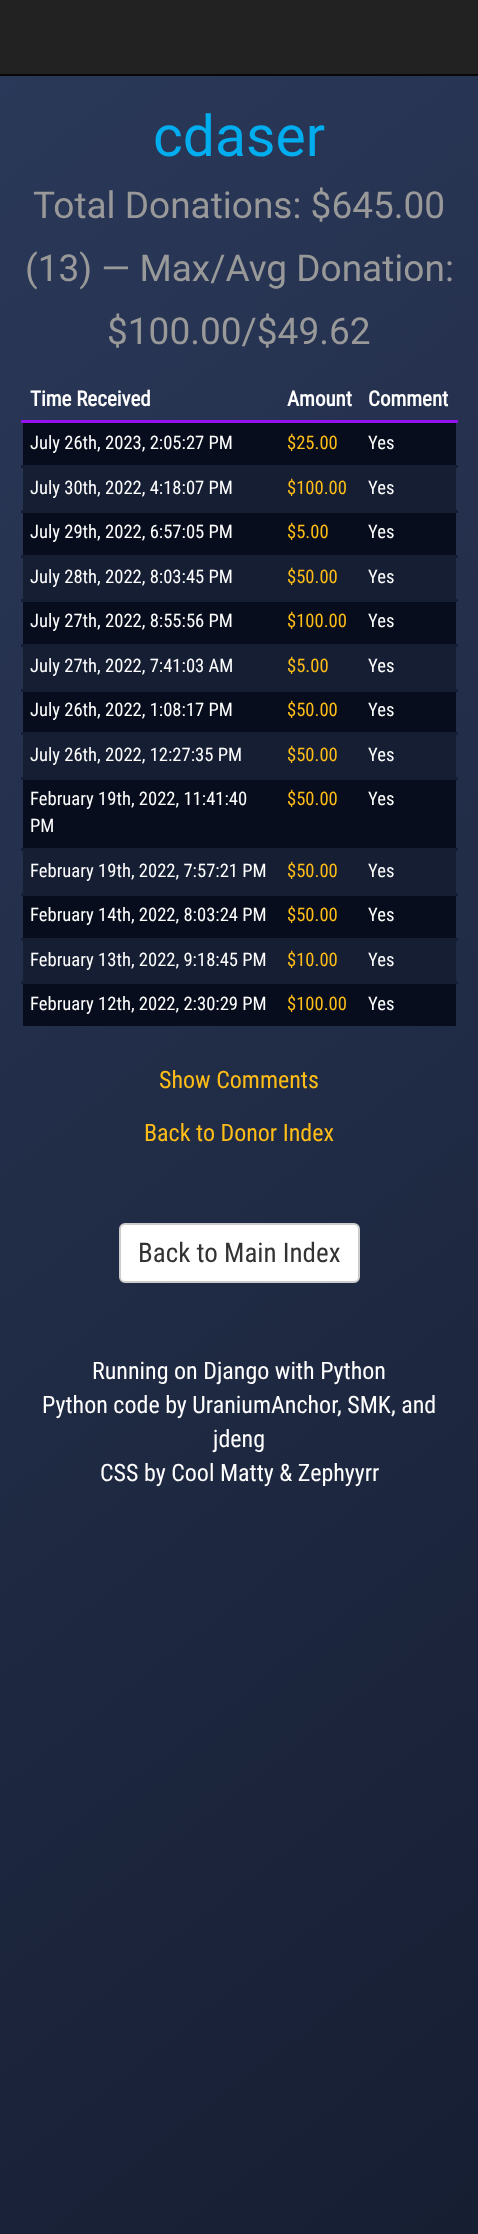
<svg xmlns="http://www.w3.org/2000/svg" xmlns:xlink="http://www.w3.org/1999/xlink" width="478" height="2234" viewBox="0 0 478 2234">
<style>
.cls-1{font:57px Roboto;fill:#00aeef}
.cls-2{font:37px Roboto;fill:#999999}
.cls-3{font:bold 21px Roboto Condensed;fill:#ffffff}
.cls-4{font:18.6px Roboto Condensed;fill:#ffffff}
.cls-5{font:18.6px Roboto Condensed;fill:#ffbd17}
.cls-6{font:24px Roboto Condensed;fill:#ffbd17}
.cls-7{font:27px Roboto Condensed;fill:#333333}
.cls-8{font:24px Roboto Condensed;fill:#ffffff}
</style>
<defs>
<linearGradient id="g1" gradientUnits="userSpaceOnUse" x1="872" y1="1927" x2="-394" y2="308"><stop offset="0" stop-color="#161e32"/><stop offset="1" stop-color="#2b395a"/></linearGradient>
</defs>
<rect width="100%" height="100%" fill="#ffffff"/>
<rect fill="url(#g1)" x="0" y="76" width="478" height="2158"/>
<rect fill="#222222" x="0" y="0" width="478" height="74"/>
<rect fill="#080808" x="0" y="74" width="478" height="2"/>
<rect fill="#9412ed" x="21" y="420" width="437" height="3"/>
<rect fill="#070d1c" x="23" y="423" width="433" height="603"/>
<rect fill="#151e33" x="23" y="468" width="433" height="42"/>
<rect fill="#151e33" x="21" y="465" width="437" height="3"/>
<rect fill="#151e33" x="21" y="510" width="437" height="3"/>
<rect fill="#151e33" x="23" y="558" width="433" height="41"/>
<rect fill="#151e33" x="21" y="555" width="437" height="3"/>
<rect fill="#151e33" x="21" y="599" width="437" height="3"/>
<rect fill="#151e33" x="23" y="647" width="433" height="42"/>
<rect fill="#151e33" x="21" y="644" width="437" height="3"/>
<rect fill="#151e33" x="21" y="689" width="437" height="3"/>
<rect fill="#151e33" x="23" y="735" width="433" height="42"/>
<rect fill="#151e33" x="21" y="732" width="437" height="3"/>
<rect fill="#151e33" x="21" y="777" width="437" height="3"/>
<rect fill="#151e33" x="23" y="851" width="433" height="42"/>
<rect fill="#151e33" x="21" y="848" width="437" height="3"/>
<rect fill="#151e33" x="21" y="893" width="437" height="3"/>
<rect fill="#151e33" x="23" y="941" width="433" height="40"/>
<rect fill="#151e33" x="21" y="938" width="437" height="3"/>
<rect fill="#151e33" x="21" y="981" width="437" height="3"/>
<rect fill="#ffffff" stroke="#cccccc" stroke-width="2" x="120" y="1224" width="239" height="58" rx="5"/>
<text class="cls-1" x="153" y="156">cdaser</text>
<text class="cls-2" x="33" y="218">Total Donations: $645.00</text>
<text class="cls-2" x="25" y="281">(13) — Max/Avg Donation:</text>
<text class="cls-2" x="107" y="344">$100.00/$49.62</text>
<text class="cls-3" x="30" y="406">Time Received</text>
<text class="cls-3" x="287" y="406">Amount</text>
<text class="cls-3" x="368" y="406">Comment</text>
<text class="cls-4" x="30" y="449">July 26th, 2023, 2:05:27 PM</text>
<text class="cls-5" x="287" y="449">$25.00</text>
<text class="cls-4" x="368" y="449">Yes</text>
<text class="cls-4" x="30" y="494">July 30th, 2022, 4:18:07 PM</text>
<text class="cls-5" x="287" y="494">$100.00</text>
<text class="cls-4" x="368" y="494">Yes</text>
<text class="cls-4" x="30" y="538">July 29th, 2022, 6:57:05 PM</text>
<text class="cls-5" x="287" y="538">$5.00</text>
<text class="cls-4" x="368" y="538">Yes</text>
<text class="cls-4" x="30" y="583">July 28th, 2022, 8:03:45 PM</text>
<text class="cls-5" x="287" y="583">$50.00</text>
<text class="cls-4" x="368" y="583">Yes</text>
<text class="cls-4" x="30" y="627">July 27th, 2022, 8:55:56 PM</text>
<text class="cls-5" x="287" y="627">$100.00</text>
<text class="cls-4" x="368" y="627">Yes</text>
<text class="cls-4" x="30" y="672">July 27th, 2022, 7:41:03 AM</text>
<text class="cls-5" x="287" y="672">$5.00</text>
<text class="cls-4" x="368" y="672">Yes</text>
<text class="cls-4" x="30" y="716">July 26th, 2022, 1:08:17 PM</text>
<text class="cls-5" x="287" y="716">$50.00</text>
<text class="cls-4" x="368" y="716">Yes</text>
<text class="cls-4" x="30" y="761">July 26th, 2022, 12:27:35 PM</text>
<text class="cls-5" x="287" y="761">$50.00</text>
<text class="cls-4" x="368" y="761">Yes</text>
<text class="cls-4"><tspan x="30" y="805">February 19th, 2022, 11:41:40</tspan><tspan x="30" y="832">PM</tspan></text>
<text class="cls-5" x="287" y="805">$50.00</text>
<text class="cls-4" x="368" y="805">Yes</text>
<text class="cls-4" x="30" y="877">February 19th, 2022, 7:57:21 PM</text>
<text class="cls-5" x="287" y="877">$50.00</text>
<text class="cls-4" x="368" y="877">Yes</text>
<text class="cls-4" x="30" y="921">February 14th, 2022, 8:03:24 PM</text>
<text class="cls-5" x="287" y="921">$50.00</text>
<text class="cls-4" x="368" y="921">Yes</text>
<text class="cls-4" x="30" y="966">February 13th, 2022, 9:18:45 PM</text>
<text class="cls-5" x="287" y="966">$10.00</text>
<text class="cls-4" x="368" y="966">Yes</text>
<text class="cls-4" x="30" y="1010">February 12th, 2022, 2:30:29 PM</text>
<text class="cls-5" x="287" y="1010">$100.00</text>
<text class="cls-4" x="368" y="1010">Yes</text>
<text class="cls-6" x="159" y="1088">Show Comments</text>
<text class="cls-6" x="144" y="1141">Back to Donor Index</text>
<text class="cls-7" x="138" y="1262">Back to Main Index</text>
<text class="cls-8" x="92" y="1379">Running on Django with Python</text>
<text class="cls-8" x="42" y="1413">Python code by UraniumAnchor, SMK, and</text>
<text class="cls-8" x="213" y="1447">jdeng</text>
<text class="cls-8" x="100" y="1481">CSS by Cool Matty &amp; Zephyyrr</text>
</svg>
